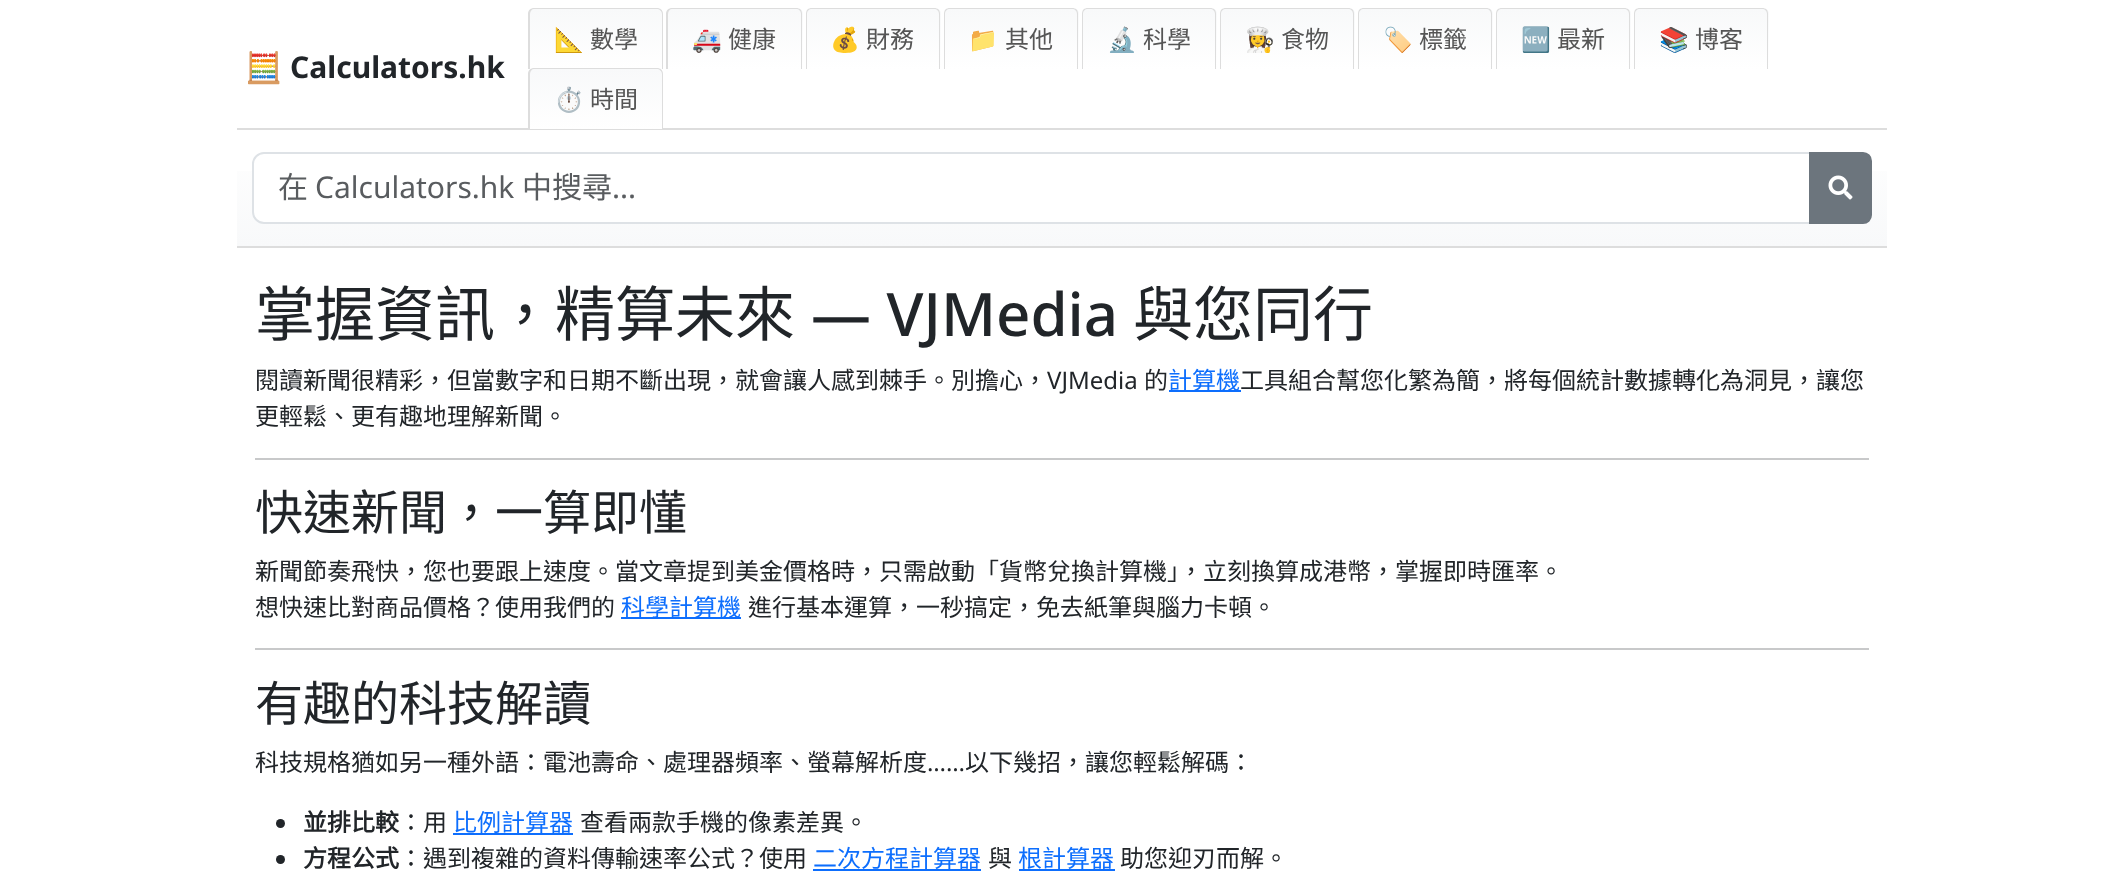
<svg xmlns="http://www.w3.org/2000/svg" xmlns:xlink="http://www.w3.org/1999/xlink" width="2123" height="881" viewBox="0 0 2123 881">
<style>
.cls-1{font:bold 30px Noto Color Emoji;fill:#212529}
.cls-2{font:bold 30px Noto Sans;fill:#212529}
.cls-3{font:24px Noto Color Emoji;fill:#555555}
.cls-4{font:24px Noto Sans CJK HK;fill:#555555}
.cls-5{font:30px Noto Sans CJK HK;fill:#595c5f}
.cls-6{font:30px Noto Sans;fill:#595c5f}
.cls-7{font:60px Noto Sans CJK HK;fill:#212529}
.cls-8{font:500 60px Noto Sans;fill:#212529}
.cls-9{font:24px Noto Sans CJK HK;fill:#212529}
.cls-10{font:24px Noto Sans;fill:#212529}
.cls-11{font:24px Noto Sans CJK HK;fill:#0d6efd}
.cls-12{font:48px Noto Sans CJK HK;fill:#212529}
.cls-13{font:bold 24px Noto Sans CJK HK;fill:#212529}
</style>
<defs>
<clipPath id="clip1"><path d="M534 8H657C660.5 8 663 10.5 663 14V69H528V14C528 10.5 530.5 8 534 8Z"/></clipPath>
<linearGradient id="g1" gradientUnits="userSpaceOnUse" x1="596" y1="9" x2="596" y2="69"><stop offset="0" stop-color="#f8f9fa"/><stop offset="1" stop-color="#ffffff"/></linearGradient>
<clipPath id="clip2"><path d="M672 8H797C800.5 8 803 10.5 803 14V69H666V14C666 10.5 668.5 8 672 8Z"/></clipPath>
<linearGradient id="g2" gradientUnits="userSpaceOnUse" x1="734" y1="9" x2="734" y2="69"><stop offset="0" stop-color="#f8f9fa"/><stop offset="1" stop-color="#ffffff"/></linearGradient>
<clipPath id="clip3"><path d="M812 8H935C938.5 8 941 10.5 941 14V69H806V14C806 10.5 808.5 8 812 8Z"/></clipPath>
<linearGradient id="g3" gradientUnits="userSpaceOnUse" x1="873" y1="9" x2="873" y2="69"><stop offset="0" stop-color="#f8f9fa"/><stop offset="1" stop-color="#ffffff"/></linearGradient>
<clipPath id="clip4"><path d="M950 8H1073C1076.5 8 1079 10.5 1079 14V69H944V14C944 10.5 946.5 8 950 8Z"/></clipPath>
<linearGradient id="g4" gradientUnits="userSpaceOnUse" x1="1011" y1="9" x2="1011" y2="69"><stop offset="0" stop-color="#f8f9fa"/><stop offset="1" stop-color="#ffffff"/></linearGradient>
<clipPath id="clip5"><path d="M1088 8H1211C1214.5 8 1217 10.5 1217 14V69H1082V14C1082 10.5 1084.5 8 1088 8Z"/></clipPath>
<linearGradient id="g5" gradientUnits="userSpaceOnUse" x1="1149" y1="9" x2="1149" y2="69"><stop offset="0" stop-color="#f8f9fa"/><stop offset="1" stop-color="#ffffff"/></linearGradient>
<clipPath id="clip6"><path d="M1226 8H1349C1352.5 8 1355 10.5 1355 14V69H1220V14C1220 10.5 1222.5 8 1226 8Z"/></clipPath>
<linearGradient id="g6" gradientUnits="userSpaceOnUse" x1="1287" y1="9" x2="1287" y2="69"><stop offset="0" stop-color="#f8f9fa"/><stop offset="1" stop-color="#ffffff"/></linearGradient>
<clipPath id="clip7"><path d="M1364 8H1487C1490.5 8 1493 10.5 1493 14V69H1358V14C1358 10.5 1360.5 8 1364 8Z"/></clipPath>
<linearGradient id="g7" gradientUnits="userSpaceOnUse" x1="1425" y1="9" x2="1425" y2="69"><stop offset="0" stop-color="#f8f9fa"/><stop offset="1" stop-color="#ffffff"/></linearGradient>
<clipPath id="clip8"><path d="M1502 8H1625C1628.5 8 1631 10.5 1631 14V69H1496V14C1496 10.5 1498.5 8 1502 8Z"/></clipPath>
<linearGradient id="g8" gradientUnits="userSpaceOnUse" x1="1563" y1="9" x2="1563" y2="69"><stop offset="0" stop-color="#f8f9fa"/><stop offset="1" stop-color="#ffffff"/></linearGradient>
<clipPath id="clip9"><path d="M1640 8H1763C1766.5 8 1769 10.5 1769 14V69H1634V14C1634 10.5 1636.5 8 1640 8Z"/></clipPath>
<linearGradient id="g9" gradientUnits="userSpaceOnUse" x1="1701" y1="9" x2="1701" y2="69"><stop offset="0" stop-color="#f8f9fa"/><stop offset="1" stop-color="#ffffff"/></linearGradient>
<clipPath id="clip10"><path d="M534 68H657C660.5 68 663 70.5 663 74V129H528V74C528 70.5 530.5 68 534 68Z"/></clipPath>
<linearGradient id="g10" gradientUnits="userSpaceOnUse" x1="596" y1="69" x2="596" y2="129"><stop offset="0" stop-color="#f8f9fa"/><stop offset="1" stop-color="#ffffff"/></linearGradient>
<linearGradient id="g11" gradientUnits="userSpaceOnUse" x1="1062" y1="129" x2="1062" y2="246"><stop offset="0" stop-color="#ffffff"/><stop offset="1" stop-color="#f8f9fa"/></linearGradient>
</defs>
<rect width="100%" height="100%" fill="#ffffff"/>
<rect fill="#dddddd" x="237" y="128" width="1650" height="2"/>
<g clip-path="url(#clip1)">
<rect fill="url(#g1)" x="528" y="9" width="135" height="60"/>
</g>
<path fill="#dddddd" fill-rule="evenodd" d="M534 8H657C660 8 663 10 663 14V69H528V14C528 10 531 8 534 8ZM534 9H657C659 9 662 11 662 14V69H530V14C530 11 532 9 534 9Z"/>
<g clip-path="url(#clip2)">
<rect fill="url(#g2)" x="666" y="9" width="137" height="60"/>
</g>
<path fill="#dddddd" fill-rule="evenodd" d="M672 8H796C800 8 802 10 802 14V69H666V14C666 10 669 8 672 8ZM672 9H796C799 9 801 11 801 14V69H668V14C668 11 670 9 672 9Z"/>
<g clip-path="url(#clip3)">
<rect fill="url(#g3)" x="806" y="9" width="135" height="60"/>
</g>
<path fill="#dddddd" fill-rule="evenodd" d="M812 8H934C938 8 940 10 940 14V69H806V14C806 10 808 8 812 8ZM812 9H934C937 9 939 11 939 14V69H807V14C807 11 809 9 812 9Z"/>
<g clip-path="url(#clip4)">
<rect fill="url(#g4)" x="944" y="9" width="135" height="60"/>
</g>
<path fill="#dddddd" fill-rule="evenodd" d="M950 8H1072C1076 8 1078 10 1078 14V69H944V14C944 10 946 8 950 8ZM950 9H1072C1075 9 1077 11 1077 14V69H945V14C945 11 947 9 950 9Z"/>
<g clip-path="url(#clip5)">
<rect fill="url(#g5)" x="1082" y="9" width="135" height="60"/>
</g>
<path fill="#dddddd" fill-rule="evenodd" d="M1088 8H1210C1214 8 1216 10 1216 14V69H1082V14C1082 10 1084 8 1088 8ZM1088 9H1210C1213 9 1215 11 1215 14V69H1083V14C1083 11 1085 9 1088 9Z"/>
<g clip-path="url(#clip6)">
<rect fill="url(#g6)" x="1220" y="9" width="135" height="60"/>
</g>
<path fill="#dddddd" fill-rule="evenodd" d="M1226 8H1348C1352 8 1354 10 1354 14V69H1220V14C1220 10 1222 8 1226 8ZM1226 9H1348C1351 9 1353 11 1353 14V69H1221V14C1221 11 1223 9 1226 9Z"/>
<g clip-path="url(#clip7)">
<rect fill="url(#g7)" x="1358" y="9" width="135" height="60"/>
</g>
<path fill="#dddddd" fill-rule="evenodd" d="M1364 8H1486C1490 8 1492 10 1492 14V69H1358V14C1358 10 1360 8 1364 8ZM1364 9H1486C1489 9 1491 11 1491 14V69H1359V14C1359 11 1361 9 1364 9Z"/>
<g clip-path="url(#clip8)">
<rect fill="url(#g8)" x="1496" y="9" width="135" height="60"/>
</g>
<path fill="#dddddd" fill-rule="evenodd" d="M1502 8H1624C1628 8 1630 10 1630 14V69H1496V14C1496 10 1498 8 1502 8ZM1502 9H1624C1627 9 1629 11 1629 14V69H1497V14C1497 11 1499 9 1502 9Z"/>
<g clip-path="url(#clip9)">
<rect fill="url(#g9)" x="1634" y="9" width="135" height="60"/>
</g>
<path fill="#dddddd" fill-rule="evenodd" d="M1640 8H1762C1766 8 1768 10 1768 14V69H1634V14C1634 10 1636 8 1640 8ZM1640 9H1762C1765 9 1767 11 1767 14V69H1635V14C1635 11 1637 9 1640 9Z"/>
<g clip-path="url(#clip10)">
<rect fill="url(#g10)" x="528" y="69" width="135" height="60"/>
</g>
<path fill="#dddddd" fill-rule="evenodd" d="M534 68H657C660 68 663 70 663 74V129H528V74C528 70 531 68 534 68ZM534 69H657C659 69 662 71 662 74V129H530V74C530 71 532 69 534 69Z"/>
<rect fill="url(#g11)" x="237" y="171" width="1650" height="75"/>
<rect fill="#dddddd" x="237" y="246" width="1650" height="2"/>
<path fill="#ffffff" stroke="#dee2e6" stroke-width="2" d="M264 153H1810V223H264C258 223 253 218 253 212V164C253 158 258 153 264 153Z"/>
<path fill="#6c757d" stroke="#6c757d" stroke-width="2" d="M1810 153H1863C1867.5 153 1871 156.5 1871 161V215C1871 219.5 1867.5 223 1863 223H1810Z"/>
<image xlink:href="image0.png" x="1828" y="175" width="25" height="25"/>
<rect fill="#0d6efd" x="1169" y="390" width="72" height="2"/>
<rect fill="#c8c9ca" x="255" y="458" width="1614" height="2"/>
<rect fill="#0d6efd" x="621" y="617" width="120" height="2"/>
<rect fill="#c8c9ca" x="255" y="648" width="1614" height="2"/>
<circle fill="#212529" cx="280.5" cy="823.5" r="4.5"/>
<rect fill="#0d6efd" x="453" y="833" width="120" height="2"/>
<circle fill="#212529" cx="280.5" cy="859.5" r="4.5"/>
<rect fill="#0d6efd" x="813" y="869" width="168" height="2"/>
<rect fill="#0d6efd" x="1019" y="869" width="96" height="2"/>
<text class="cls-1" x="245" y="78">🧮</text>
<text class="cls-2" x="290" y="78">Calculators.hk</text>
<text class="cls-3" x="554" y="48">📐</text>
<text class="cls-4" x="590" y="48">數學</text>
<text class="cls-3" x="692" y="48">🚑</text>
<text class="cls-4" x="728" y="48">健康</text>
<text class="cls-3" x="830" y="48">💰</text>
<text class="cls-4" x="866" y="48">財務</text>
<text class="cls-3" x="968" y="48">📁</text>
<text class="cls-4" x="1005" y="48">其他</text>
<text class="cls-3" x="1107" y="48">🔬</text>
<text class="cls-4" x="1143" y="48">科學</text>
<text class="cls-3" x="1245" y="48">👩‍🍳</text>
<text class="cls-4" x="1281" y="48">食物</text>
<text class="cls-3" x="1383" y="48">🏷️</text>
<text class="cls-4" x="1419" y="48">標籤</text>
<text class="cls-3" x="1521" y="48">🆕</text>
<text class="cls-4" x="1557" y="48">最新</text>
<text class="cls-3" x="1659" y="48">📚</text>
<text class="cls-4" x="1695" y="48">博客</text>
<text class="cls-3" x="554" y="108">⏱</text>
<text class="cls-4" x="590" y="108">時間</text>
<text class="cls-5" x="278" y="198">在</text>
<text class="cls-6" x="315" y="198">Calculators.hk</text>
<text class="cls-5" x="522" y="198">中搜尋</text>
<text class="cls-6" x="612" y="198">...</text>
<text class="cls-7" x="255" y="336">掌握資訊，精算未來</text>
<text class="cls-8" x="811" y="336">— VJMedia</text>
<text class="cls-7" x="1133" y="336">與您同行</text>
<text class="cls-9" x="255" y="389">閱讀新聞很精彩，但當數字和日期不斷出現，就會讓人感到棘手。別擔心，</text>
<text class="cls-10" x="1047" y="389">VJMedia</text>
<text class="cls-9" x="1144" y="389">的</text>
<text class="cls-11" x="1168" y="389">計算機</text>
<text class="cls-9" x="1240" y="389">工具組合幫您化繁為簡，將每個統計數據轉化為洞見，讓您</text>
<text class="cls-9" x="255" y="425">更輕鬆、更有趣地理解新聞。</text>
<text class="cls-12" x="255" y="530">快速新聞，一算即懂</text>
<text class="cls-9"><tspan x="255" y="580">新聞節奏飛快，您也要跟上速度。當文章提到美金價格時，只需啟動「貨幣兌換計算機」，立刻換算成港幣，掌握即時匯率。</tspan><tspan x="255" y="616">想快速比對商品價格？使用我們的</tspan></text>
<text class="cls-11" x="621" y="616">科學計算機</text>
<text class="cls-9" x="748" y="616">進行基本運算，一秒搞定，免去紙筆與腦力卡頓。</text>
<text class="cls-12" x="255" y="721">有趣的科技解讀</text>
<text class="cls-9" x="255" y="771">科技規格猶如另一種外語：電池壽命、處理器頻率、螢幕解析度</text>
<text class="cls-10" x="927" y="771">……</text>
<text class="cls-9" x="965" y="771">以下幾招，讓您輕鬆解碼：</text>
<text class="cls-13" x="303" y="831">並排比較</text>
<text class="cls-9" x="399" y="831">：用</text>
<text class="cls-11" x="453" y="831">比例計算器</text>
<text class="cls-9" x="580" y="831">查看兩款手機的像素差異。</text>
<text class="cls-13" x="303" y="867">方程公式</text>
<text class="cls-9" x="399" y="867">：遇到複雜的資料傳輸速率公式？使用</text>
<text class="cls-11" x="813" y="867">二次方程計算器</text>
<text class="cls-9" x="988" y="867">與</text>
<text class="cls-11" x="1018" y="867">根計算器</text>
<text class="cls-9" x="1120" y="867">助您迎刃而解。</text>
</svg>
